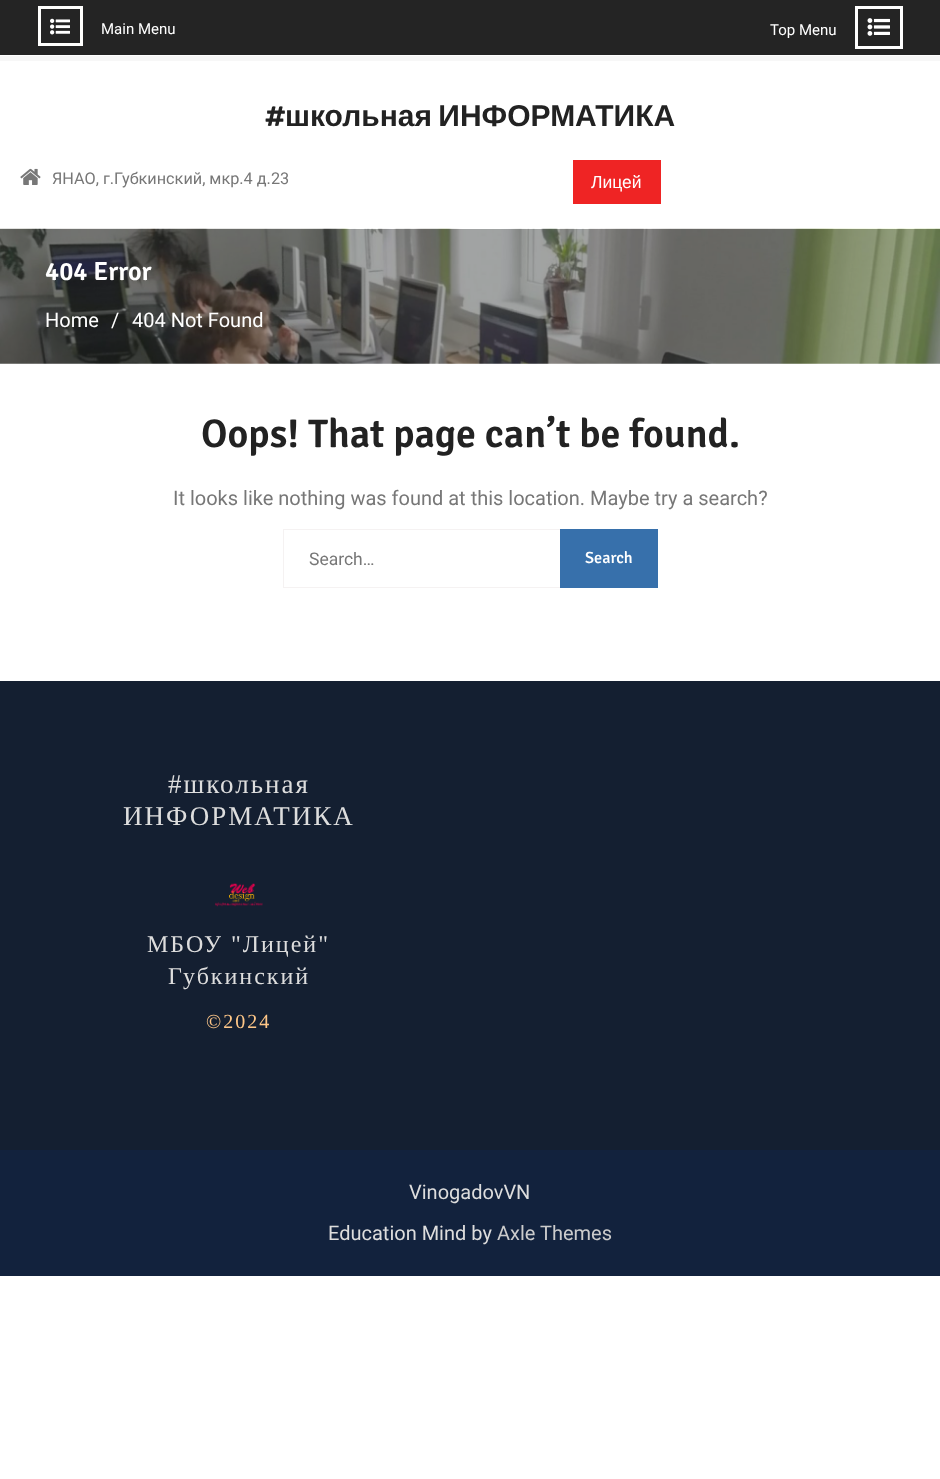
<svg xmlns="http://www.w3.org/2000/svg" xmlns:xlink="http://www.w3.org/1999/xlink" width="940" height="1479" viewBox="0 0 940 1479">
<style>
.cls-1{font:15px Roboto;fill:#ffffff}
.cls-2{font:600 30px Signika;fill:#222222}
.cls-3{font:bold 30px Liberation Sans;fill:#222222}
.cls-4{font:16.25px Roboto;fill:#777777}
.cls-5{font:17.5px Liberation Sans;fill:#ffffff}
.cls-6{font:600 26.25px Signika;fill:#ffffff}
.cls-7{font:20px Roboto;fill:#ffffff}
.cls-8{font:600 40px Signika;fill:#222222}
.cls-9{font:20px Roboto;fill:#777777}
.cls-10{font:17.5px Roboto;fill:#777777}
.cls-11{font:500 16.25px Signika;fill:#ffffff}
.cls-12{font:27px Liberation Serif;letter-spacing:2px;fill:#dddddd}
.cls-13{font:24px Liberation Serif;letter-spacing:2px;fill:#dddddd}
.cls-14{font:20px Liberation Serif;letter-spacing:2px;fill:#ffc788}
.cls-15{font:20px Roboto;fill:#dddddd}
.cls-16{font:20px Roboto;fill:#cccccc}
</style>
<rect width="100%" height="100%" fill="#ffffff"/>
<rect fill="#242424" x="0" y="0" width="940" height="55"/>
<rect fill="none" stroke="#fffffe" stroke-width="3" x="39.5" y="7.5" width="42" height="37"/>
<image xlink:href="image0.png" x="50" y="18" width="20" height="17"/>
<rect fill="none" stroke="#ffffff" stroke-width="3" x="856.5" y="7.5" width="45" height="40"/>
<image xlink:href="image1.png" x="867" y="18" width="23" height="18"/>
<rect fill="#f7f7f7" x="0" y="56" width="940" height="5"/>
<image xlink:href="image2.png" x="20" y="168" width="21" height="17"/>
<rect fill="#ef2424" x="573" y="160" width="88" height="44"/>
<image xlink:href="image3.png" x="0" y="228" width="940" height="136"/>
<rect fill="none" stroke="#f5f2f2" x="283.5" y="529.5" width="374" height="58"/>
<rect fill="#3770ab" x="560" y="529" width="98" height="59"/>
<rect fill="#141f31" x="0" y="681" width="940" height="469"/>
<image xlink:href="image4.png" x="215" y="883" width="48" height="24"/>
<rect fill="#12223d" x="0" y="1150" width="940" height="126"/>
<text class="cls-1" x="101" y="34">Main Menu</text>
<text class="cls-1" x="770" y="35">Top Menu</text>
<text class="cls-2" x="265" y="126">#</text>
<text class="cls-3" x="285" y="126" word-spacing="-2">школьная ИНФОРМАТИКА</text>
<text class="cls-4" x="52" y="184">ЯНАО, г.Губкинский, мкр.4 д.23</text>
<text class="cls-5" x="591" y="188">Лицей</text>
<text class="cls-6" x="45" y="280">404 Error</text>
<text class="cls-7" x="45" y="327">Home</text>
<text class="cls-7" x="111" y="327">/</text>
<text class="cls-7" x="132" y="327">404 Not Found</text>
<text class="cls-8" x="201" y="447">Oops! That page can’t be found.</text>
<text class="cls-9" x="173" y="505">It looks like nothing was found at this location. Maybe try a search?</text>
<text class="cls-10" x="309" y="565">Search…</text>
<text class="cls-11" x="585" y="563">Search</text>
<text class="cls-12" x="168" y="793">#школьная</text>
<text class="cls-12" x="123" y="825">ИНФОРМАТИКА</text>
<text class="cls-13" x="147" y="952">МБОУ "Лицей"</text>
<text class="cls-13" x="168" y="984">Губкинский</text>
<text class="cls-14" x="206" y="1028">©2024</text>
<text class="cls-15" x="409" y="1199">VinogadovVN</text>
<text class="cls-15" x="328" y="1240">Education Mind by</text>
<text class="cls-16" x="497" y="1240">Axle Themes</text>
</svg>
